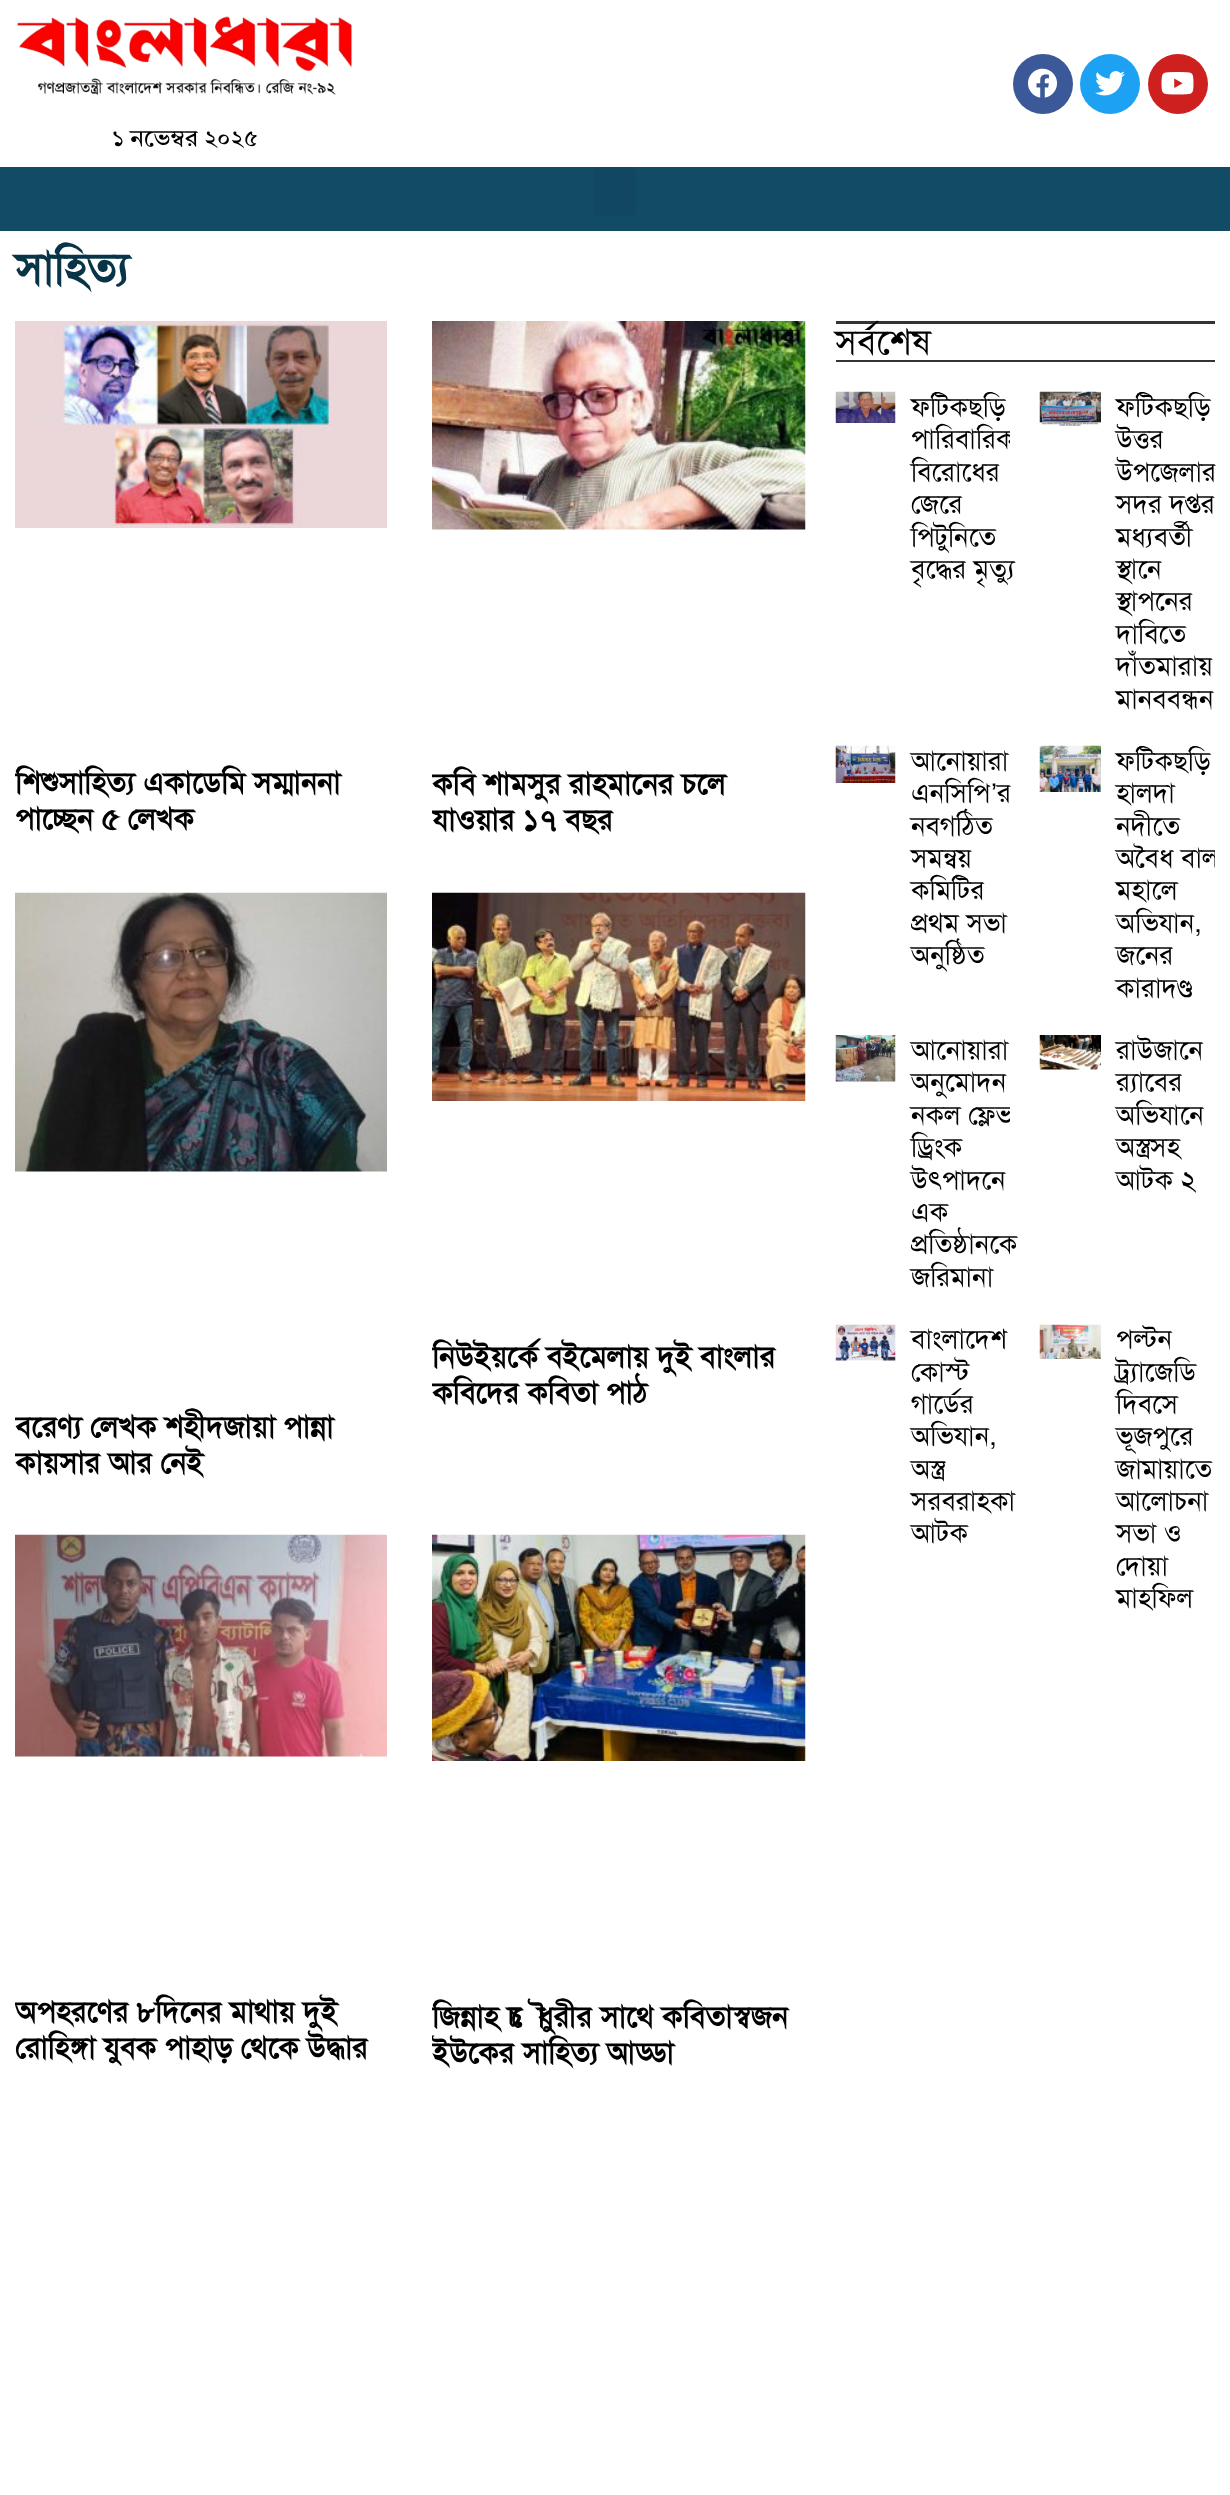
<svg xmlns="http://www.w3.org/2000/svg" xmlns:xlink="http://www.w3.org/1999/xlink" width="1230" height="2495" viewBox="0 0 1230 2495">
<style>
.cls-1{font:24px Tiro Bangla;fill:#000000}
.cls-2{font:bold 45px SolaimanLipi;fill:#073447}
.cls-3{font:bold 30px SolaimanLipi;fill:#000000}
.cls-4{font:36px SolaimanLipi;fill:#000000}
.cls-5{font:27px SolaimanLipi;fill:#000000}
.cls-6{font:27px Liberation Sans;fill:#000000}
</style>
<defs>
<clipPath id="clip1"><rect x="15" y="321" width="372" height="519"/></clipPath>
<clipPath id="clip2"><rect x="432" y="321" width="374" height="519"/></clipPath>
<clipPath id="clip3"><rect x="432" y="893" width="374" height="589"/></clipPath>
<clipPath id="clip4"><rect x="15" y="893" width="372" height="589"/></clipPath>
<clipPath id="clip5"><rect x="15" y="1535" width="372" height="537"/></clipPath>
<clipPath id="clip6"><rect x="432" y="1535" width="374" height="537"/></clipPath>
<clipPath id="clip7"><rect x="836" y="392" width="174" height="324"/></clipPath>
<clipPath id="clip8"><rect x="1040" y="392" width="175" height="324"/></clipPath>
<clipPath id="clip9"><rect x="1040" y="746" width="175" height="259"/></clipPath>
<clipPath id="clip10"><rect x="836" y="1035" width="174" height="260"/></clipPath>
<clipPath id="clip11"><rect x="1040" y="1325" width="175" height="291"/></clipPath>
</defs>
<rect width="100%" height="100%" fill="#ffffff"/>
<circle fill="#3b5998" cx="1043" cy="84" r="30"/>
<image xlink:href="image0.png" x="1028" y="68" width="29" height="30"/>
<circle fill="#1da1f2" cx="1110" cy="84" r="30"/>
<image xlink:href="image1.png" x="1095" y="71" width="30" height="25"/>
<circle fill="#cd201f" cx="1178" cy="84" r="30"/>
<image xlink:href="image2.png" x="1161" y="72" width="33" height="23"/>
<image xlink:href="image3.png" x="17" y="16" width="335" height="80"/>
<rect fill="#124b65" x="0" y="167" width="1230" height="64"/>
<rect fill="#114760" x="594" y="167" width="42" height="49" rx="5"/>
<image xlink:href="image4.png" x="15" y="321" width="372" height="207"/>
<image xlink:href="image5.png" x="432" y="321" width="374" height="209"/>
<image xlink:href="image6.png" x="432" y="892" width="374" height="209"/>
<image xlink:href="image7.png" x="15" y="892" width="372" height="280"/>
<image xlink:href="image8.png" x="15" y="1534" width="372" height="223"/>
<image xlink:href="image9.png" x="432" y="1534" width="374" height="227"/>
<rect fill="#333333" x="836" y="321" width="379" height="3"/>
<rect fill="#333333" x="836" y="360" width="379" height="2"/>
<image xlink:href="image10.png" x="835" y="391" width="61" height="32"/>
<image xlink:href="image11.png" x="1039" y="391" width="62" height="35"/>
<image xlink:href="image12.png" x="835" y="745" width="61" height="38"/>
<image xlink:href="image13.png" x="1039" y="745" width="62" height="47"/>
<image xlink:href="image14.png" x="835" y="1035" width="61" height="47"/>
<image xlink:href="image15.png" x="1039" y="1035" width="62" height="35"/>
<image xlink:href="image16.png" x="835" y="1324" width="61" height="37"/>
<image xlink:href="image17.png" x="1039" y="1324" width="62" height="35"/>
<text class="cls-1" x="112" y="146">১ নভেম্বর ২০২৫</text>
<text class="cls-2" x="15" y="284">সাহিত্য</text>
<g clip-path="url(#clip1)">
<text class="cls-3"><tspan x="15" y="793">শিশুসাহিত্য একাডেমি সম্মাননা</tspan><tspan x="15" y="829">পাচ্ছেন ৫ লেখক</tspan></text>
</g>
<g clip-path="url(#clip2)">
<text class="cls-3"><tspan x="432" y="794">কবি শামসুর রাহমানের চলে</tspan><tspan x="432" y="830">যাওয়ার ১৭ বছর</tspan></text>
</g>
<g clip-path="url(#clip3)">
<text class="cls-3"><tspan x="432" y="1367">নিউইয়র্কে বইমেলায় দুই বাংলার</tspan><tspan x="432" y="1403">কবিদের কবিতা পাঠ</tspan></text>
</g>
<g clip-path="url(#clip4)">
<text class="cls-3"><tspan x="15" y="1437">বরেণ্য লেখক শহীদজায়া পান্না</tspan><tspan x="15" y="1473">কায়সার আর নেই</tspan></text>
</g>
<g clip-path="url(#clip5)">
<text class="cls-3"><tspan x="15" y="2022">অপহরণের ৮দিনের মাথায় দুই</tspan><tspan x="15" y="2058">রোহিঙ্গা যুবক পাহাড় থেকে উদ্ধার</tspan></text>
</g>
<g clip-path="url(#clip6)">
<text class="cls-3"><tspan x="432" y="2027">জিন্নাহ চৌধুরীর সাথে কবিতাস্বজন</tspan><tspan x="432" y="2063">ইউকের সাহিত্য আড্ডা</tspan></text>
</g>
<text class="cls-4" x="835" y="354">সর্বশেষ</text>
<g clip-path="url(#clip7)">
<text class="cls-5"><tspan x="911" y="416">ফটিকছড়ি</tspan><tspan x="911" y="448">পারিবারিক</tspan></text>
</g>
<text class="cls-5"><tspan x="911" y="481">বিরোধের</tspan><tspan x="911" y="513">জেরে</tspan><tspan x="911" y="546">পিটুনিতে</tspan><tspan x="911" y="578">বৃদ্ধের মৃত্যু</tspan></text>
<g clip-path="url(#clip8)">
<text class="cls-5" x="1116" y="416">ফটিকছড়ি</text>
</g>
<text class="cls-5"><tspan x="1116" y="448">উত্তর</tspan><tspan x="1116" y="481">উপজেলার</tspan><tspan x="1116" y="513">সদর দপ্তর</tspan><tspan x="1116" y="546">মধ্যবর্তী</tspan><tspan x="1116" y="578">স্থানে</tspan><tspan x="1116" y="610">স্থাপনের</tspan><tspan x="1116" y="643">দাবিতে</tspan><tspan x="1116" y="675">দাঁতমারায়</tspan><tspan x="1116" y="708">মানববন্ধন</tspan></text>
<text class="cls-5"><tspan x="911" y="770">আনোয়ারা</tspan><tspan x="911" y="802">এনসিপি</tspan></text>
<text class="cls-6" x="991" y="802">’</text>
<text class="cls-5" x="997" y="802">র</text>
<text class="cls-5"><tspan x="911" y="835">নবগঠিত</tspan><tspan x="911" y="867">সমন্বয়</tspan><tspan x="911" y="899">কমিটির</tspan><tspan x="911" y="932">প্রথম সভা</tspan><tspan x="911" y="964">অনুষ্ঠিত</tspan></text>
<g clip-path="url(#clip9)">
<text class="cls-5" x="1116" y="770">ফটিকছড়ি</text>
</g>
<text class="cls-5"><tspan x="1116" y="802">হালদা</tspan><tspan x="1116" y="835">নদীতে</tspan></text>
<g clip-path="url(#clip9)">
<text class="cls-5" x="1116" y="867">অবৈধ বাল</text>
</g>
<text class="cls-5"><tspan x="1116" y="899">মহালে</tspan><tspan x="1116" y="932">অভিযান,</tspan><tspan x="1116" y="964">জনের</tspan><tspan x="1116" y="997">কারাদণ্ড</tspan></text>
<text class="cls-5"><tspan x="911" y="1059">আনোয়ারা</tspan><tspan x="911" y="1091">অনুমোদন</tspan></text>
<g clip-path="url(#clip10)">
<text class="cls-5" x="911" y="1124">নকল ফ্লেভ</text>
</g>
<text class="cls-5"><tspan x="911" y="1156">ড্রিংক</tspan><tspan x="911" y="1189">উৎপাদনে</tspan><tspan x="911" y="1221">এক</tspan><tspan x="911" y="1253">প্রতিষ্ঠানকে</tspan><tspan x="911" y="1286">জরিমানা</tspan></text>
<text class="cls-5"><tspan x="1116" y="1059">রাউজানে</tspan><tspan x="1116" y="1091">র‌্যাবের</tspan><tspan x="1116" y="1124">অভিযানে</tspan><tspan x="1116" y="1156">অস্ত্রসহ</tspan><tspan x="1116" y="1189">আটক ২</tspan></text>
<text class="cls-5"><tspan x="911" y="1348">বাংলাদেশ</tspan><tspan x="911" y="1381">কোস্ট</tspan><tspan x="911" y="1413">গার্ডের</tspan><tspan x="911" y="1445">অভিযান,</tspan><tspan x="911" y="1478">অস্ত্র</tspan><tspan x="911" y="1510">সরবরাহকা</tspan><tspan x="911" y="1542">আটক</tspan></text>
<g clip-path="url(#clip11)">
<text class="cls-5" x="1116" y="1348">পল্টন</text>
</g>
<text class="cls-5"><tspan x="1116" y="1381">ট্র্যাজেডি</tspan><tspan x="1116" y="1413">দিবসে</tspan><tspan x="1116" y="1445">ভূজপুরে</tspan><tspan x="1116" y="1478">জামায়াতে</tspan><tspan x="1116" y="1510">আলোচনা</tspan><tspan x="1116" y="1542">সভা ও</tspan><tspan x="1116" y="1575">দোয়া</tspan><tspan x="1116" y="1607">মাহফিল</tspan></text>
</svg>
